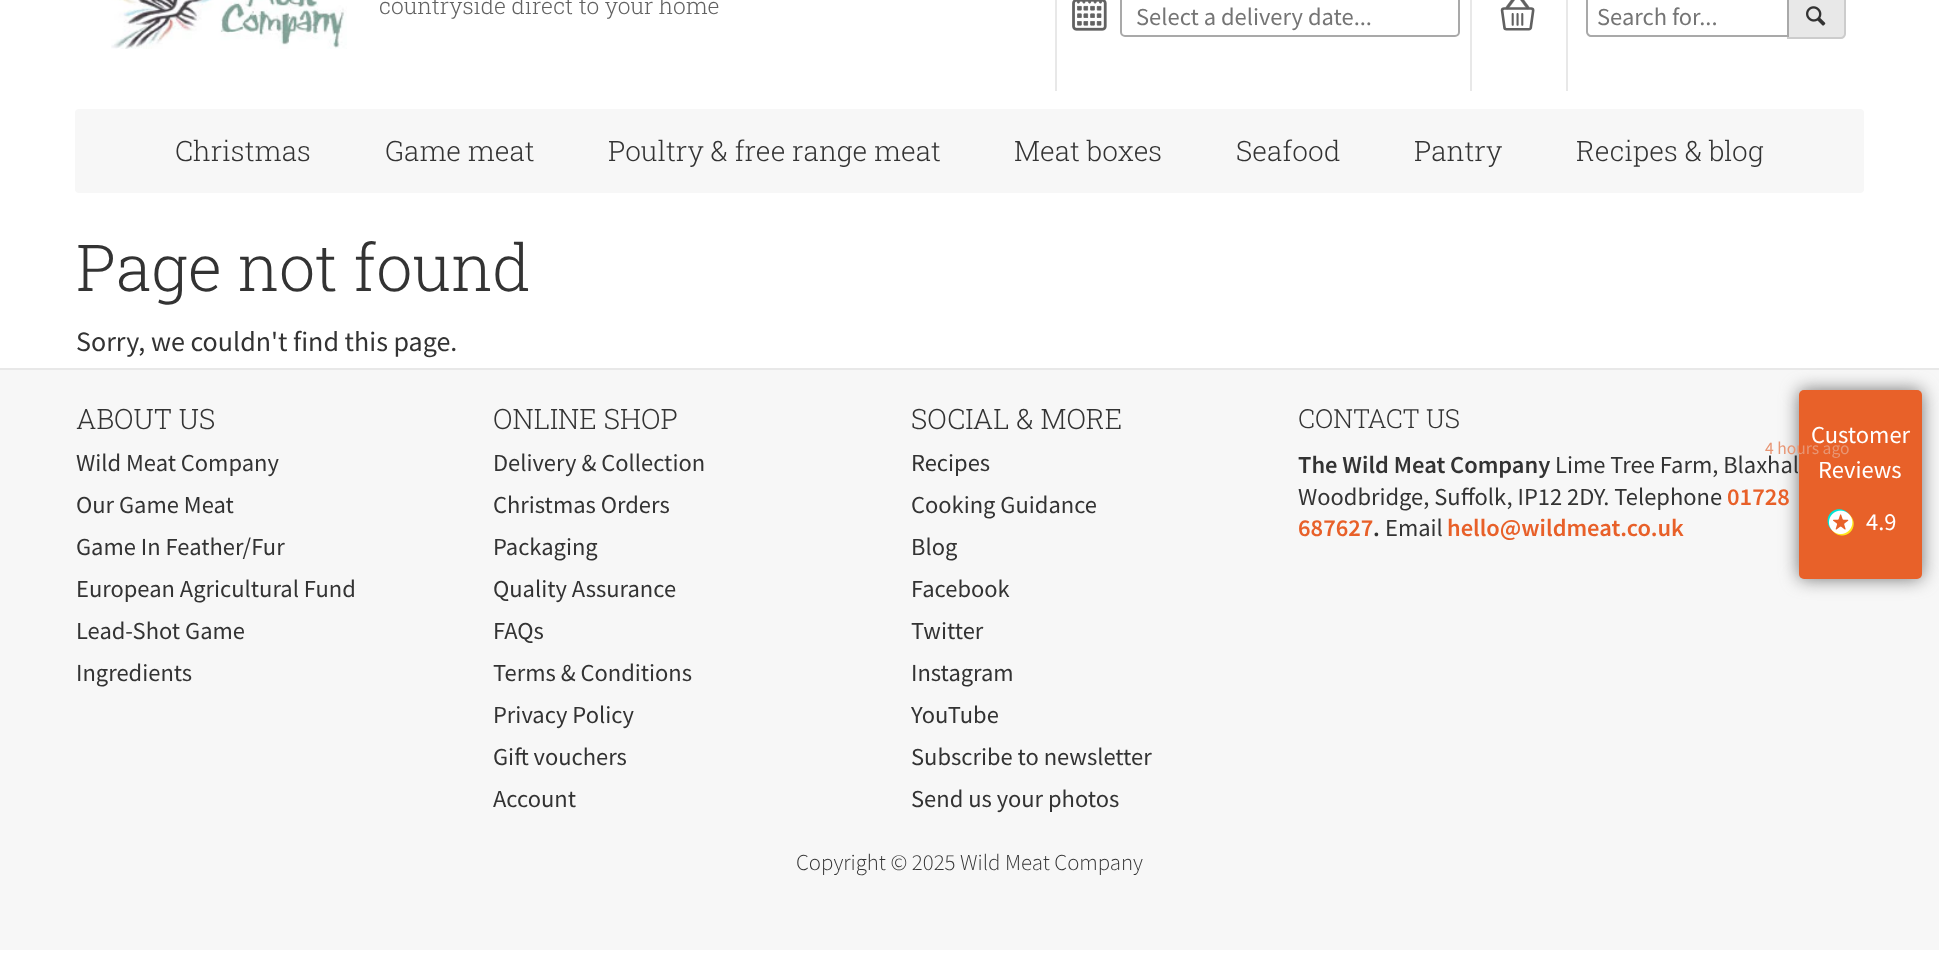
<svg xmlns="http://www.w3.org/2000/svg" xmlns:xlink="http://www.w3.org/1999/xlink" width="1939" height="967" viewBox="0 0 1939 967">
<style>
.cls-1{font:300 22.75px Roboto Slab;fill:#616161}
.cls-2{font:24.5px Source Sans Pro;fill:#757575}
.cls-3{font:300 28px Roboto Slab;fill:#333333}
.cls-4{font:300 64.75px Roboto Slab;fill:#333333}
.cls-5{font:28px Source Sans Pro;fill:#333333}
.cls-6{font:24.5px Source Sans Pro;fill:#333333}
.cls-7{font:300 26.25px Roboto Slab;fill:#333333}
.cls-8{font:600 24.5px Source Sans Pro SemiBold;fill:#333333}
.cls-9{font:600 24.5px Source Sans Pro SemiBold;fill:#e86029}
.cls-10{font:300 22.75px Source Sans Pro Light;fill:#333333}
.cls-11{font:17.5px Source Sans Pro;fill:#e89674}
.cls-12{font:24.5px Source Sans Pro;fill:#ffffff}
</style>
<rect width="100%" height="100%" fill="#ffffff"/>
<image xlink:href="image0.png" x="111" y="0" width="236" height="49"/>
<rect fill="#e8e8e8" x="1055" y="0" width="2" height="91"/>
<image xlink:href="image1.png" x="1072" y="0" width="35" height="31"/>
<rect fill="none" stroke="#a9a9a9" stroke-width="2" x="1121" y="-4" width="338" height="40" rx="4"/>
<rect fill="#e8e8e8" x="1470" y="0" width="2" height="91"/>
<image xlink:href="image2.png" x="1500" y="0" width="35" height="31"/>
<rect fill="#e8e8e8" x="1566" y="0" width="2" height="91"/>
<path fill="#e8e8e8" stroke="#cccccc" stroke-width="2" d="M1788-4H1841C1843-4 1845-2 1845 0V34C1845 36 1843 38 1841 38H1788Z"/>
<path fill="#ffffff" stroke="#a9a9a9" stroke-width="2" d="M1591-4H1788V36H1591C1589 36 1587 34 1587 32V0C1587-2 1589-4 1591-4Z"/>
<image xlink:href="image3.png" x="1806" y="6" width="20" height="20"/>
<rect fill="#f7f7f7" x="75" y="109" width="1789" height="84" rx="4"/>
<rect fill="#f7f7f7" x="0" y="370" width="1939" height="580"/>
<rect fill="#e8e8e8" x="0" y="368" width="1939" height="2"/>
<rect fill="#747474" filter="blur(9px)" x="1799" y="390" width="123" height="189" rx="5"/>
<rect fill="#e86129" x="1799" y="390" width="123" height="189" rx="5"/>
<image xlink:href="image4.png" x="1827" y="509" width="27" height="27"/>
<text class="cls-1" x="379" y="14">countryside direct to your home</text>
<text class="cls-2" x="1136" y="25">Select a delivery date...</text>
<text class="cls-2" x="1597" y="25">Search for...</text>
<text class="cls-3" x="175" y="161">Christmas</text>
<text class="cls-3" x="385" y="161">Game meat</text>
<text class="cls-3" x="608" y="161">Poultry &amp; free range meat</text>
<text class="cls-3" x="1014" y="161">Meat boxes</text>
<text class="cls-3" x="1236" y="161">Seafood</text>
<text class="cls-3" x="1414" y="161">Pantry</text>
<text class="cls-3" x="1576" y="161">Recipes &amp; blog</text>
<text class="cls-4" x="76" y="291">Page not found</text>
<text class="cls-5" x="76" y="351">Sorry, we couldn't find this page.</text>
<text class="cls-3" x="76" y="429">ABOUT US</text>
<text class="cls-6"><tspan x="76" y="471">Wild Meat Company</tspan><tspan x="76" y="513">Our Game Meat</tspan><tspan x="76" y="555">Game In Feather/Fur</tspan><tspan x="76" y="597">European Agricultural Fund</tspan><tspan x="76" y="639">Lead-Shot Game</tspan><tspan x="76" y="681">Ingredients</tspan></text>
<text class="cls-3" x="493" y="429">ONLINE SHOP</text>
<text class="cls-6"><tspan x="493" y="471">Delivery &amp; Collection</tspan><tspan x="493" y="513">Christmas Orders</tspan><tspan x="493" y="555">Packaging</tspan><tspan x="493" y="597">Quality Assurance</tspan><tspan x="493" y="639">FAQs</tspan><tspan x="493" y="681">Terms &amp; Conditions</tspan><tspan x="493" y="723">Privacy Policy</tspan><tspan x="493" y="765">Gift vouchers</tspan><tspan x="493" y="807">Account</tspan></text>
<text class="cls-3" x="911" y="429">SOCIAL &amp; MORE</text>
<text class="cls-6"><tspan x="911" y="471">Recipes</tspan><tspan x="911" y="513">Cooking Guidance</tspan><tspan x="911" y="555">Blog</tspan><tspan x="911" y="597">Facebook</tspan><tspan x="911" y="639">Twitter</tspan><tspan x="911" y="681">Instagram</tspan><tspan x="911" y="723">YouTube</tspan><tspan x="911" y="765">Subscribe to newsletter</tspan><tspan x="911" y="807">Send us your photos</tspan></text>
<text class="cls-7" x="1298" y="428">CONTACT US</text>
<text class="cls-8" x="1298" y="473">The Wild Meat Company</text>
<text class="cls-6" x="1555" y="473">Lime Tree Farm, Blaxhal</text>
<text class="cls-6" x="1298" y="505">Woodbridge, Suffolk, IP12 2DY. Telephone</text>
<text class="cls-9" x="1727" y="505">01728</text>
<text class="cls-9" x="1298" y="536">687627</text>
<text class="cls-8" x="1373" y="536">.</text>
<text class="cls-6" x="1385" y="536">Email</text>
<text class="cls-9" x="1447" y="536">hello@wildmeat.co.uk</text>
<text class="cls-10" x="796" y="870">Copyright © 2025 Wild Meat Company</text>
<text class="cls-11" x="1765" y="454">4 hours ago</text>
<text class="cls-12" x="1811" y="443">Customer</text>
<text class="cls-12" x="1818" y="478">Reviews</text>
<text class="cls-12" x="1866" y="530">4.9</text>
</svg>
